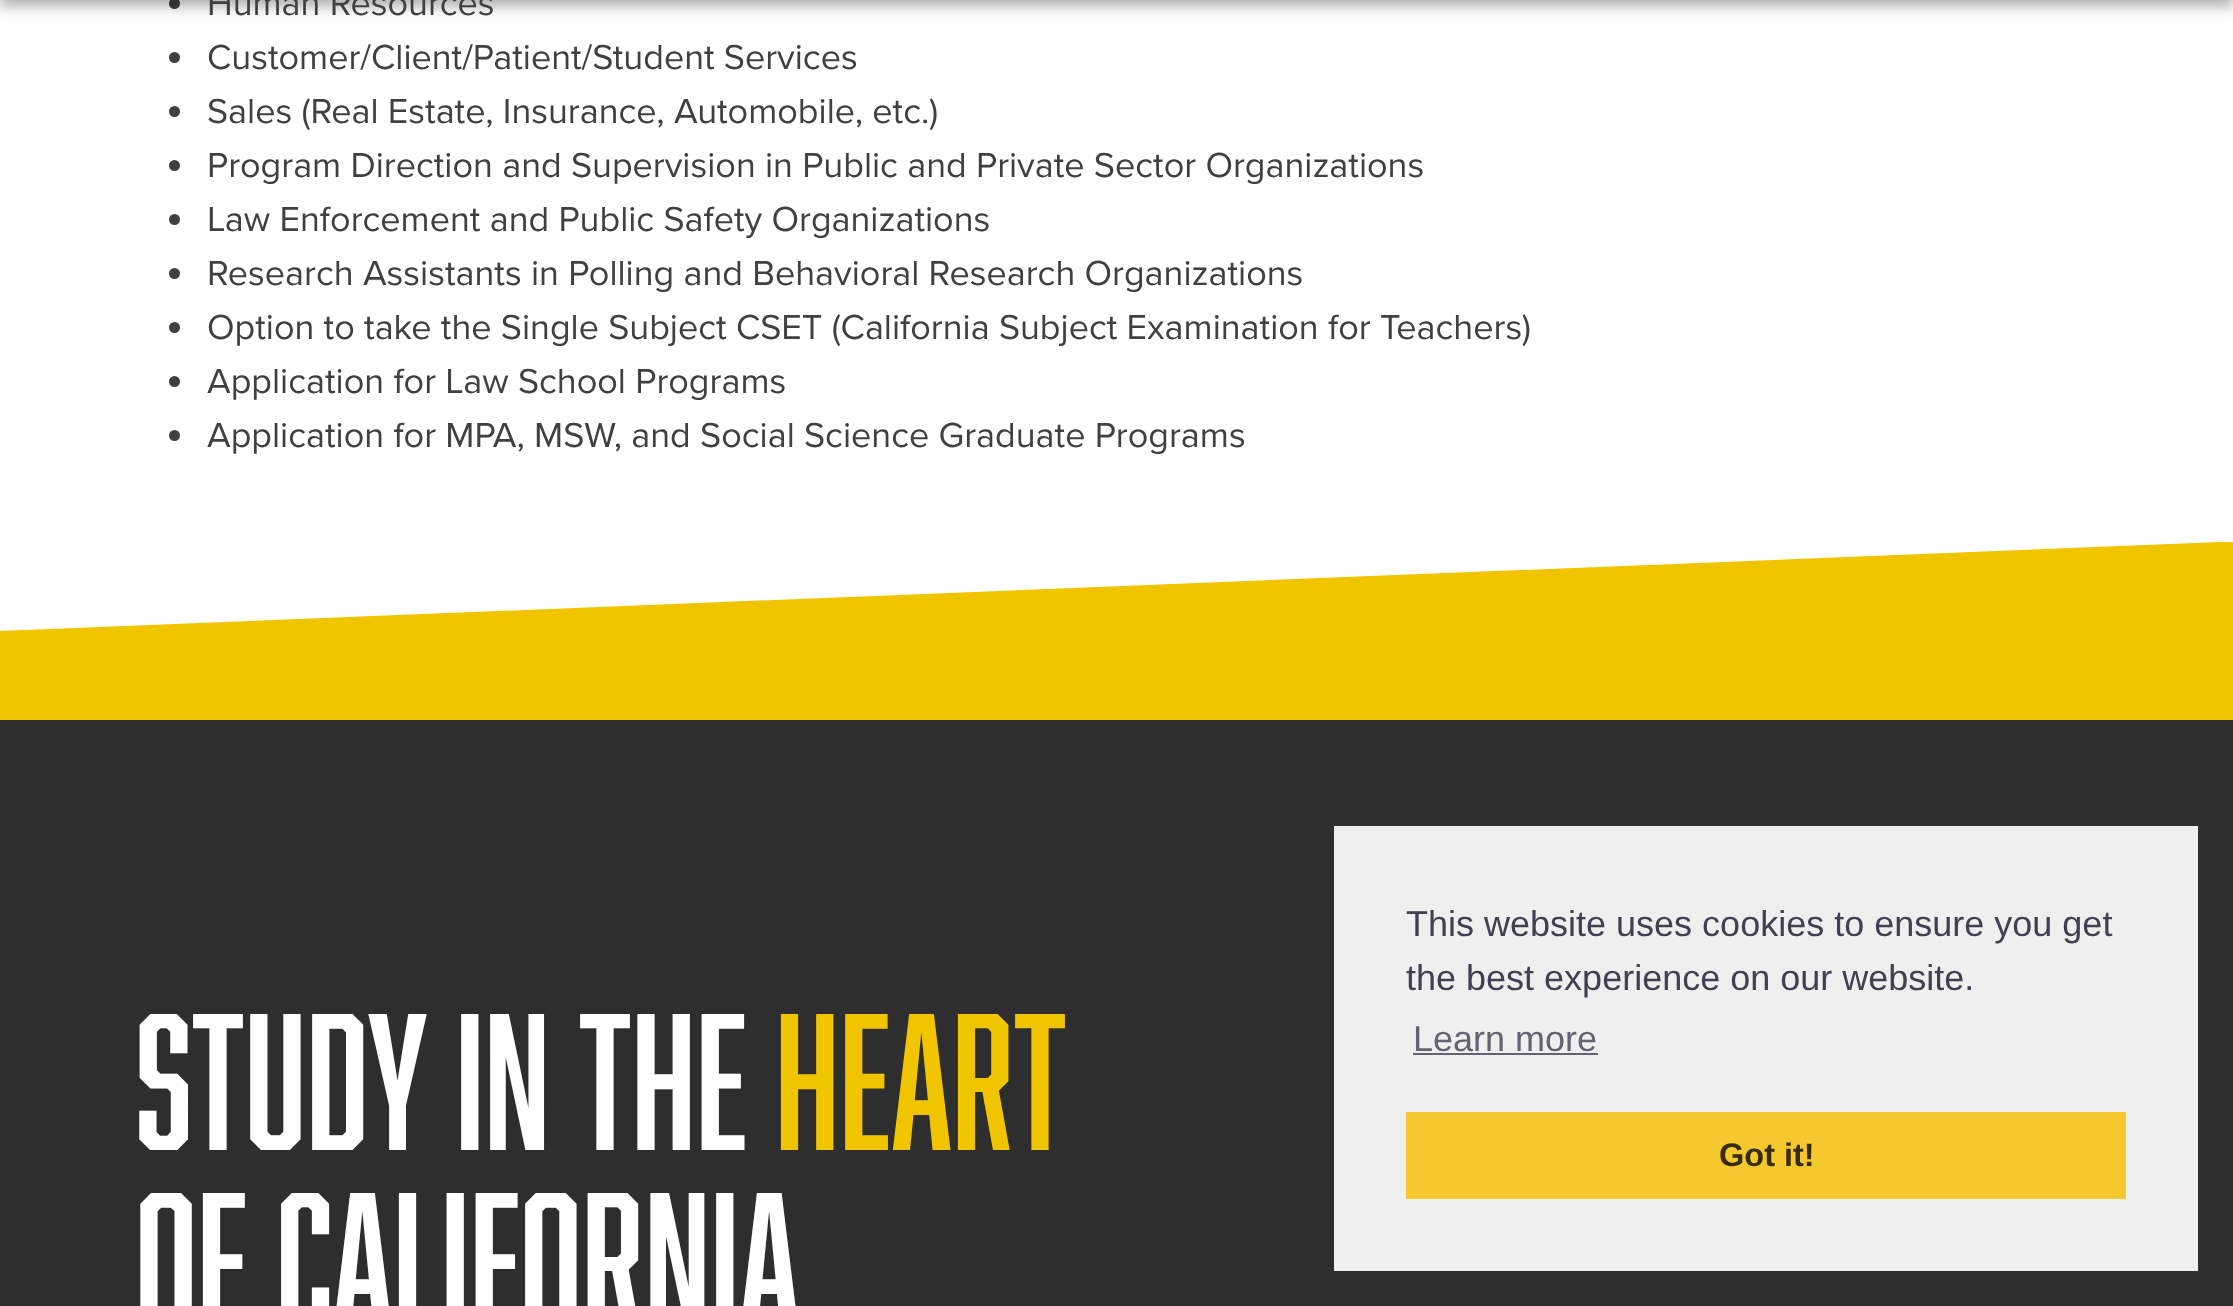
<svg xmlns="http://www.w3.org/2000/svg" xmlns:xlink="http://www.w3.org/1999/xlink" width="2233" height="1306" viewBox="0 0 2233 1306">
<style>
.cls-1{font:36px Proxima Nova;fill:#404040}
.cls-2{font:179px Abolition;fill:#ffffff}
.cls-3{font:179px Abolition;fill:#f1c400}
.cls-4{font:36px Liberation Sans;fill:#404051}
.cls-5{font:36px Liberation Sans;fill:#636371}
.cls-6{font:bold 32.5px Liberation Sans;fill:#382b08}
</style>
<rect width="100%" height="100%" fill="#ffffff"/>
<circle fill="#404040" cx="174.5" cy="3.5" r="5.5"/>
<rect fill="#000000" fill-opacity="0.25" filter="blur(7px)" x="0" y="-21" width="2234" height="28"/>
<rect fill="#000000" fill-opacity="0.07" filter="blur(5.5px)" x="0" y="-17" width="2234" height="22"/>
<circle fill="#404040" cx="174.5" cy="57.5" r="5.5"/>
<circle fill="#404040" cx="174.5" cy="111.5" r="5.5"/>
<circle fill="#404040" cx="174.5" cy="165.5" r="5.5"/>
<circle fill="#404040" cx="174.5" cy="219.5" r="5.5"/>
<circle fill="#404040" cx="174.5" cy="273.5" r="5.5"/>
<circle fill="#404040" cx="174.5" cy="327.5" r="5.5"/>
<circle fill="#404040" cx="174.5" cy="381.5" r="5.5"/>
<circle fill="#404040" cx="174.5" cy="435.5" r="5.5"/>
<path fill="#f1c400" d="M0 631V720H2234V542H2220Z"/>
<rect fill="#2e2e2e" x="0" y="720" width="2233" height="586"/>
<rect fill="#efefef" x="1334" y="826" width="864" height="445"/>
<rect fill="#636371" x="1413" y="1053" width="185" height="2"/>
<rect fill="#f5c92e" x="1406" y="1112" width="720" height="87"/>
<text class="cls-1"><tspan x="207" y="15">Human Resources</tspan><tspan x="207" y="69">Customer/Client/Patient/Student Services</tspan><tspan x="207" y="123">Sales (Real Estate, Insurance, Automobile, etc.)</tspan><tspan x="207" y="177">Program Direction and Supervision in Public and Private Sector Organizations</tspan><tspan x="207" y="231">Law Enforcement and Public Safety Organizations</tspan><tspan x="207" y="285">Research Assistants in Polling and Behavioral Research Organizations</tspan><tspan x="207" y="339">Option to take the Single Subject CSET (California Subject Examination for Teachers)</tspan><tspan x="207" y="393">Application for Law School Programs</tspan><tspan x="207" y="447">Application for MPA, MSW, and Social Science Graduate Programs</tspan></text>
<text class="cls-2" x="135" y="1150">STUDY IN THE</text>
<text class="cls-3" x="775" y="1150">HEART</text>
<text class="cls-2" x="135" y="1329">OF CALIFORNIA</text>
<text class="cls-4"><tspan x="1406" y="936">This website uses cookies to ensure you get</tspan><tspan x="1406" y="990">the best experience on our website.</tspan></text>
<text class="cls-5" x="1413" y="1051">Learn more</text>
<text class="cls-6" x="1719" y="1166">Got it!</text>
</svg>
